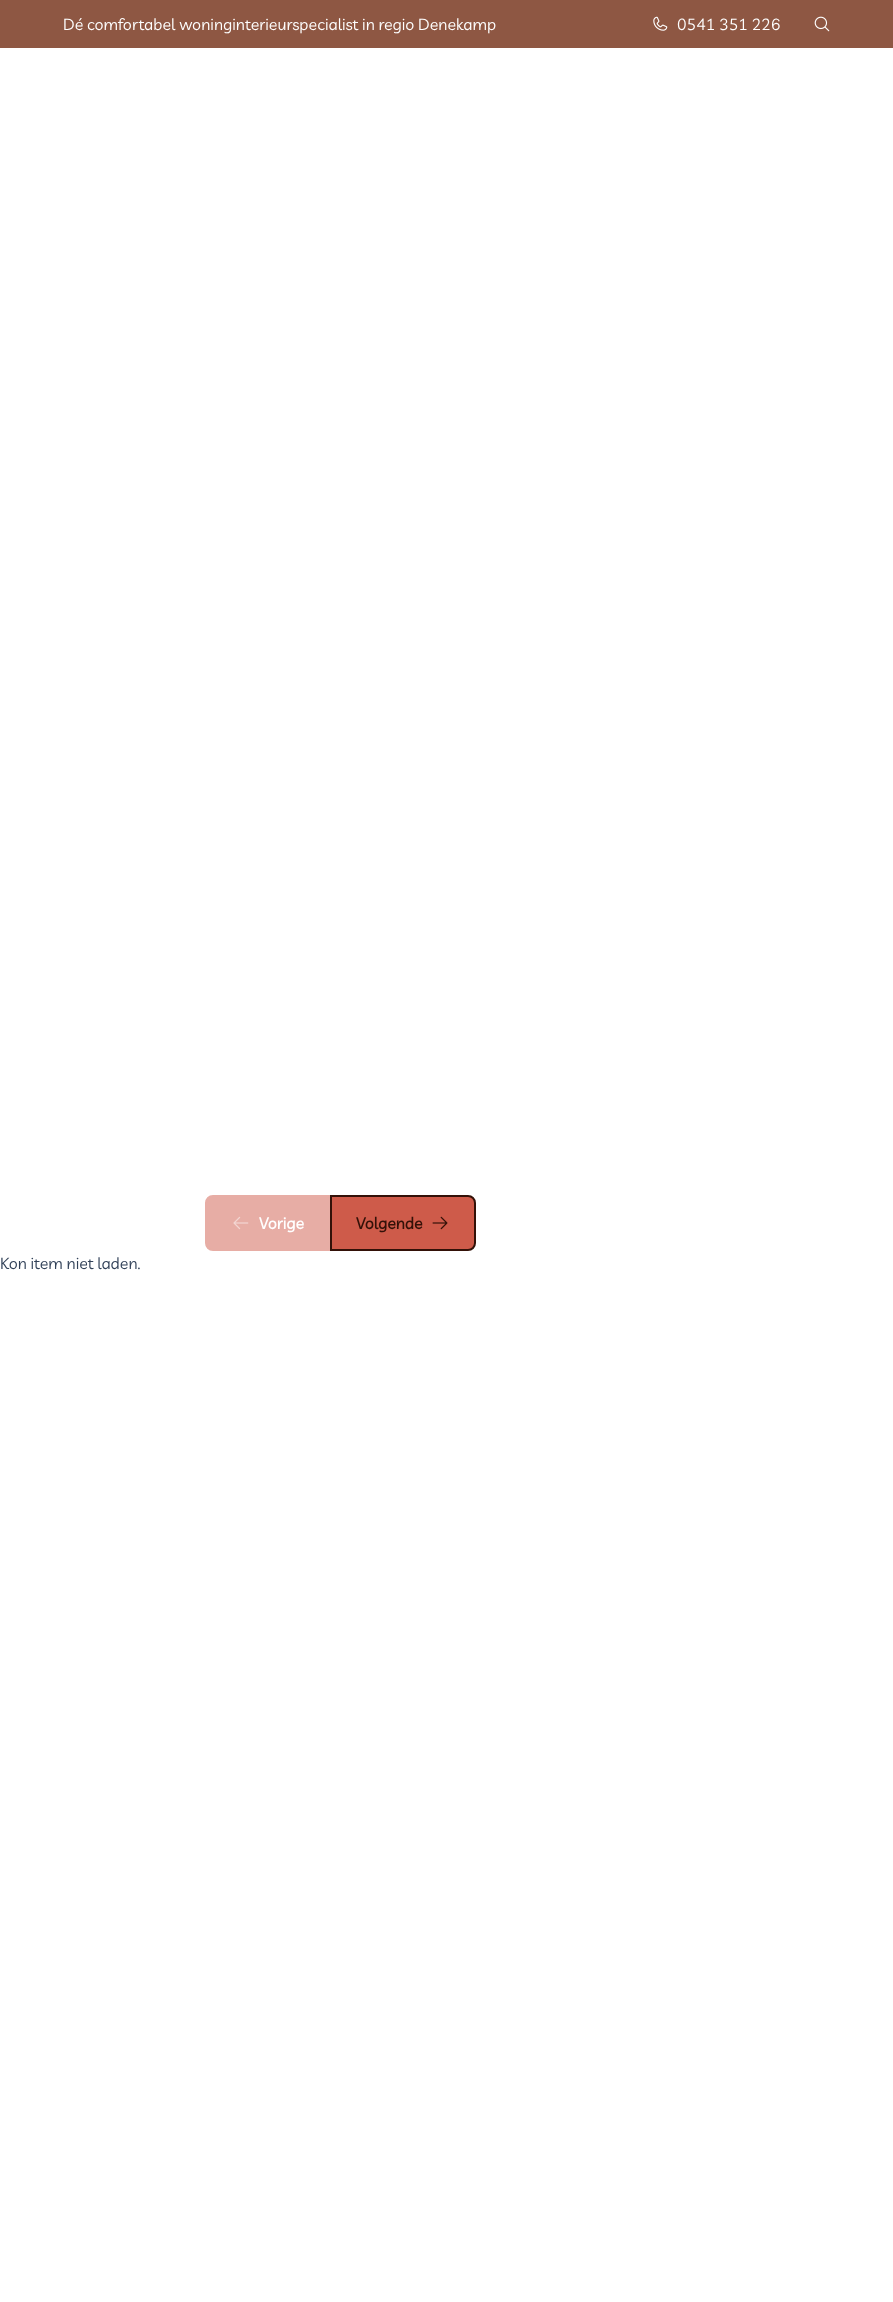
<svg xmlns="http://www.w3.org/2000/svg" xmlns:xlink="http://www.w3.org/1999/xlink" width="893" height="2302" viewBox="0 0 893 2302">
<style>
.cls-1{font:16px Livvic;fill:#ffffff}
.cls-2{font:bold 16px Livvic;fill:#ffffff}
.cls-3{font:bold 16px Livvic;fill:#331108}
.cls-4{font:16px Livvic;fill:#314158}
</style>
<rect width="100%" height="100%" fill="#ffffff"/>
<rect fill="#8e5743" x="0" y="0" width="893" height="48"/>
<image xlink:href="image0.png" x="653" y="16" width="15" height="15"/>
<image xlink:href="image1.png" x="814" y="16" width="16" height="16"/>
<path fill="#e7ada5" stroke="#e7ada5" stroke-width="2" d="M213 1196H329V1250H213C209 1250 206 1247 206 1243V1203C206 1199 209 1196 213 1196Z"/>
<image xlink:href="image2.png" x="233" y="1216" width="16" height="14"/>
<path fill="#ce5b4a" stroke="#331108" stroke-width="2" d="M331 1196H468C472 1196 475 1199 475 1203V1243C475 1247 472 1250 468 1250H331Z"/>
<image xlink:href="image3.png" x="432" y="1216" width="16" height="14"/>
<text class="cls-1" x="63" y="30">Dé comfortabel woninginterieurspecialist in regio Denekamp</text>
<text class="cls-1" x="677" y="30">0541 351 226</text>
<text class="cls-2" x="259" y="1229">Vorige</text>
<text class="cls-3" x="356" y="1229">Volgende</text>
<text class="cls-4" x="0" y="1269">Kon item niet laden.</text>
</svg>
